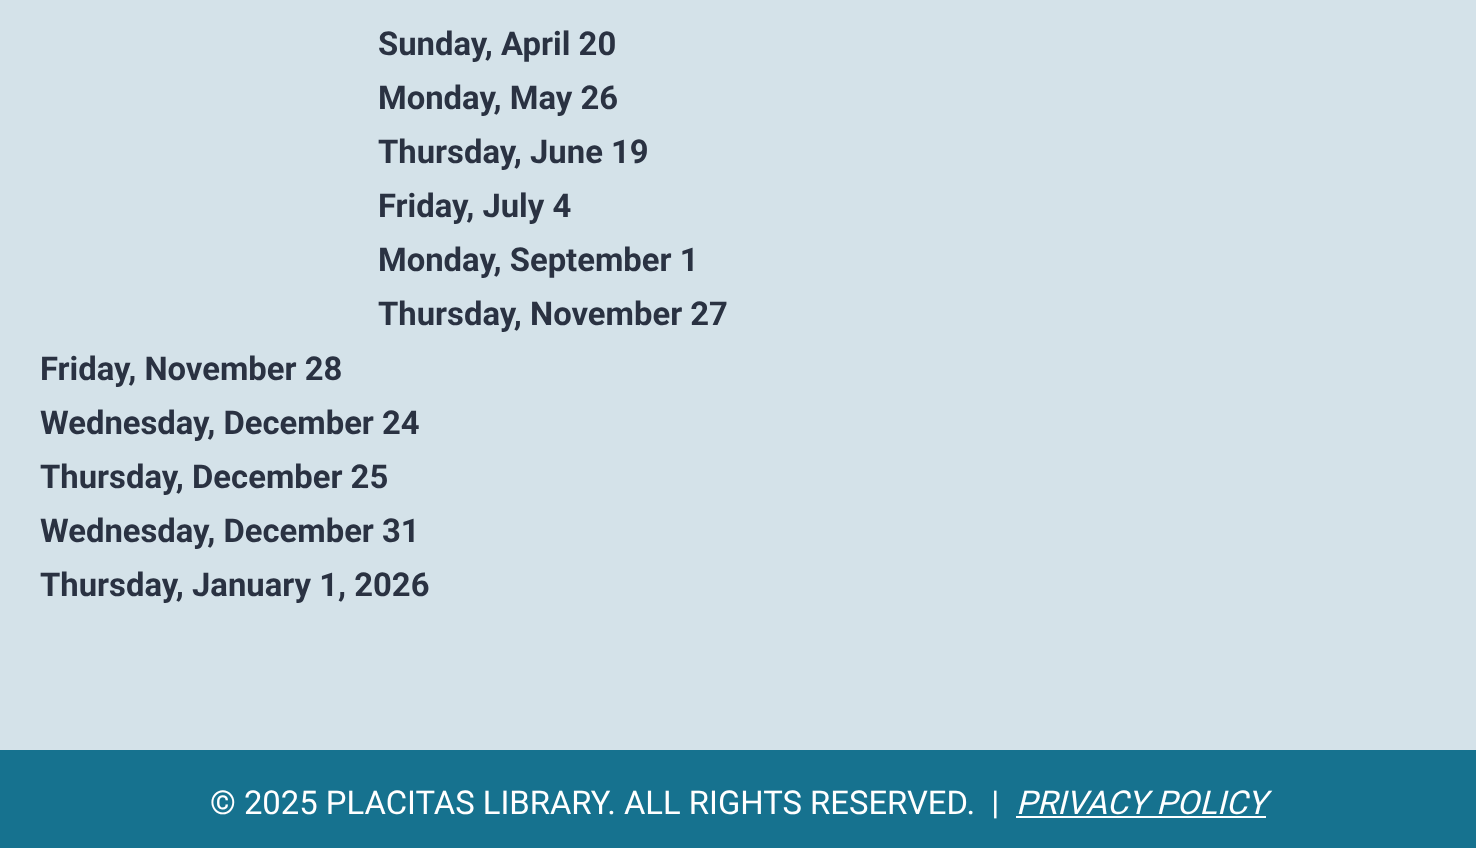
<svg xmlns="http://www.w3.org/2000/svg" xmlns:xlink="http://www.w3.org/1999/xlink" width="1476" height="848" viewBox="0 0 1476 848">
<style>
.cls-1{font:bold 32.8px Roboto;fill:#2a3242}
.cls-2{font:32.8px Roboto;fill:#ffffff}
.cls-3{font:italic 32.8px Roboto;fill:#ffffff}
</style>
<rect width="100%" height="100%" fill="#d4e2e9"/>
<rect fill="#16728f" x="0" y="750" width="1476" height="98"/>
<rect fill="#ffffff" x="1016" y="816" width="250" height="2"/>
<text class="cls-1"><tspan x="378" y="55">Sunday, April 20</tspan><tspan x="378" y="109">Monday, May 26</tspan><tspan x="378" y="163">Thursday, June 19</tspan><tspan x="378" y="217">Friday, July 4</tspan><tspan x="378" y="271">Monday, September 1</tspan><tspan x="378" y="325">Thursday, November 27</tspan></text>
<text class="cls-1"><tspan x="40" y="380">Friday, November 28</tspan><tspan x="40" y="434">Wednesday, December 24</tspan><tspan x="40" y="488">Thursday, December 25</tspan><tspan x="40" y="542">Wednesday, December 31</tspan><tspan x="40" y="596">Thursday, January 1, 2026</tspan></text>
<text class="cls-2" xml:space="preserve" x="210" y="814">© 2025 PLACITAS LIBRARY. ALL RIGHTS RESERVED.  |</text>
<text class="cls-3" x="1016" y="814">PRIVACY POLICY</text>
</svg>
